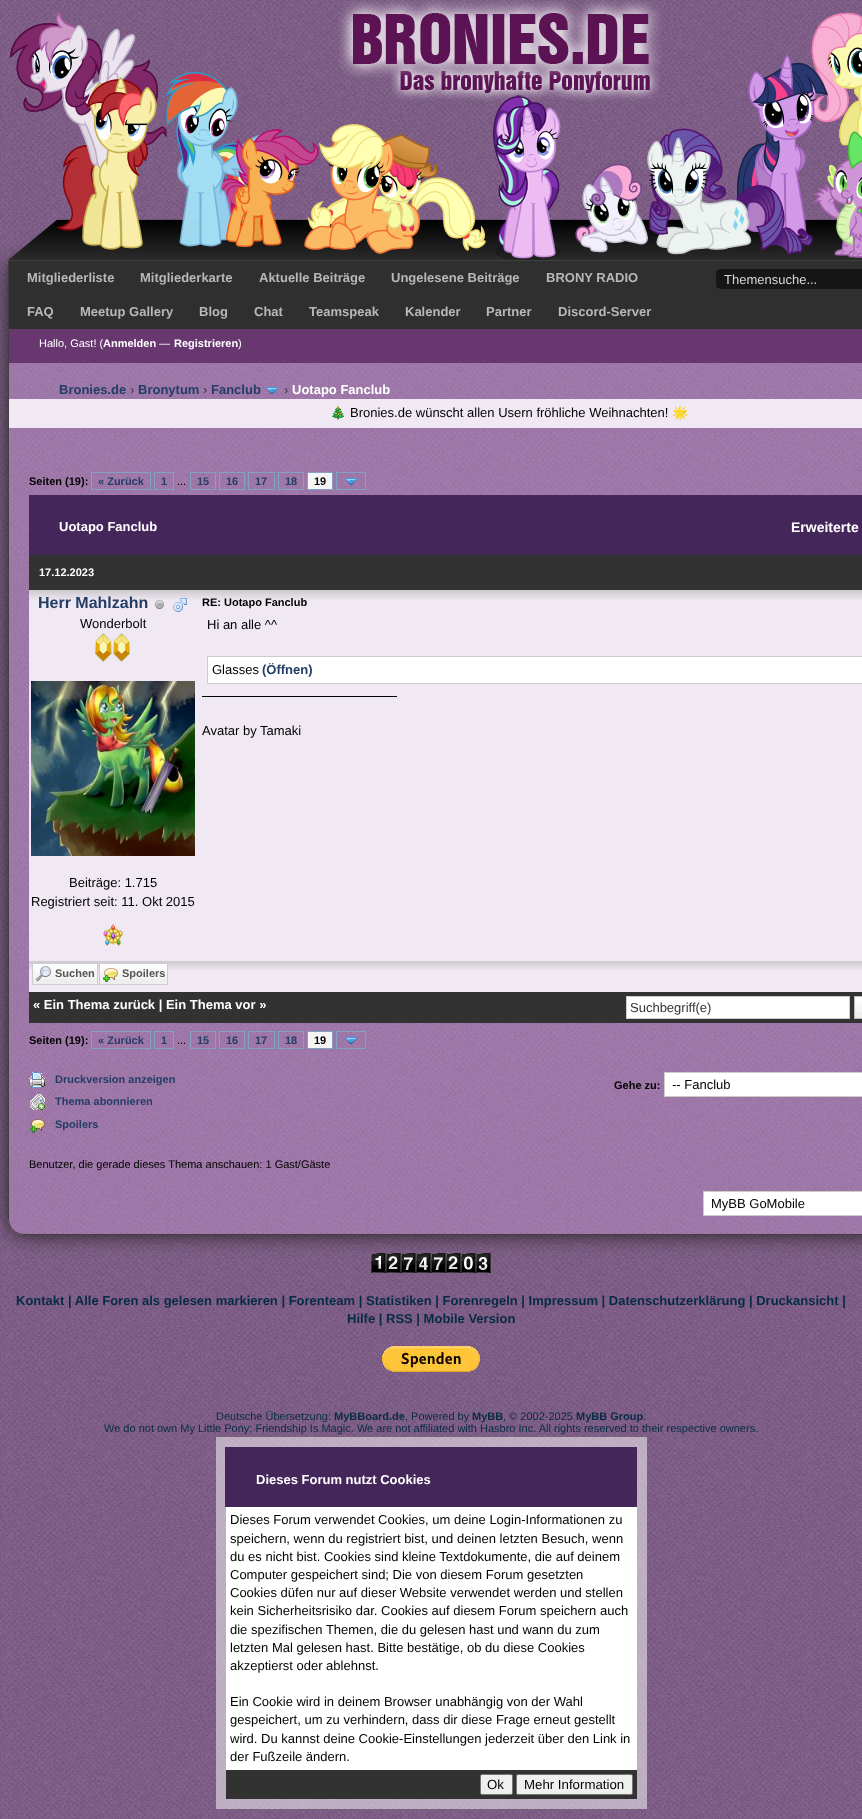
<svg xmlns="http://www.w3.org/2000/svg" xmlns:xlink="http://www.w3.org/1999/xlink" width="862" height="1819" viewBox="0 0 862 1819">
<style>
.cls-1{font:bold 13px Liberation Sans;fill:#b8b8b8}
.cls-2{font:13px Liberation Sans;fill:#d7d7d7}
.cls-3{font:11px Liberation Sans;fill:#ffffff}
.cls-4{font:bold 11px Liberation Sans;fill:#ffffff}
.cls-5{font:bold 13px Liberation Sans;fill:#223e66}
.cls-6{font:13px Liberation Sans;fill:#333333}
.cls-7{font:bold 13px Liberation Sans;fill:#ffffff}
.cls-8{font:13px Noto Color Emoji;fill:#000000}
.cls-9{font:13px Liberation Sans;fill:#000000}
.cls-10{font:bold 11px Liberation Sans;fill:#000000}
.cls-11{font:bold 11px Liberation Sans;fill:#223e66}
.cls-12{font:11px Liberation Sans;fill:#000000}
.cls-13{font:bold 14px Liberation Sans;fill:#ffffff}
.cls-14{font:bold 16px Liberation Sans;fill:#223e66}
.cls-15{font:bold 11px Liberation Sans;fill:#555555}
.cls-16{font:bold 13px Liberation Sans;fill:#062b44}
.cls-17{font:11px Liberation Sans;fill:#062b44}
.cls-18{font:bold 11px Liberation Sans;fill:#062b44}
.cls-19{font:13.25px Liberation Sans;fill:#000000}
</style>
<defs>
<clipPath id="clip1"><path d="M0 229H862V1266H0ZM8 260H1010V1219C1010 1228 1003 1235 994 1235H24C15 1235 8 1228 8 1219Z" clip-rule="evenodd"/></clipPath>
<linearGradient id="g1" gradientUnits="userSpaceOnUse" x1="113" y1="590" x2="113" y2="961"><stop offset="0" stop-color="#cdc8cd"/><stop offset="0.03" stop-color="#f0e9f3"/></linearGradient>
<linearGradient id="g2" gradientUnits="userSpaceOnUse" x1="593" y1="590" x2="593" y2="961"><stop offset="0" stop-color="#cdc8cd"/><stop offset="0.03" stop-color="#f0e9f3"/></linearGradient>
<linearGradient id="g3" gradientUnits="userSpaceOnUse" x1="509" y1="961" x2="509" y2="992"><stop offset="0" stop-color="#cdc8cd"/><stop offset="0.32" stop-color="#f0e9f3"/></linearGradient>
</defs>
<rect width="100%" height="100%" fill="#ffffff"/>
<image xlink:href="image0.png" x="0" y="0" width="862" height="1819"/>
<g clip-path="url(#clip1)">
<rect fill="#212121" filter="blur(10px)" x="8" y="260" width="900" height="975" rx="16"/>
</g>
<image xlink:href="image1.png" x="8" y="0" width="854" height="260"/>
<image xlink:href="image2.png" x="8" y="363" width="854" height="872"/>
<path fill="none" stroke="#404040" d="M8.5 260.5H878.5V1219C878.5 1227.5 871.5 1234.5 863 1234.5H24C15.5 1234.5 8.5 1227.5 8.5 1219Z"/>
<rect fill="#2f2f2f" x="9" y="261" width="853" height="68"/>
<image xlink:href="image3.png" x="716" y="269" width="146" height="20"/>
<rect fill="#683770" x="9" y="329" width="853" height="34"/>
<image xlink:href="image4.png" x="265" y="387" width="14" height="7"/>
<rect fill="#f0e9f3" x="9" y="399" width="853" height="29"/>
<rect fill="none" stroke="#81a2c4" x="91.5" y="472.5" width="59" height="17"/>
<rect fill="none" stroke="#81a2c4" x="154.5" y="472.5" width="19" height="17"/>
<rect fill="none" stroke="#81a2c4" x="190.5" y="472.5" width="25" height="17"/>
<rect fill="none" stroke="#81a2c4" x="219.5" y="472.5" width="25" height="17"/>
<rect fill="none" stroke="#81a2c4" x="248.5" y="472.5" width="26" height="17"/>
<rect fill="none" stroke="#81a2c4" x="278.5" y="472.5" width="25" height="17"/>
<rect fill="#f5f5f5" stroke="#81a2c4" x="307.5" y="472.5" width="25" height="17"/>
<rect fill="none" stroke="#81a2c4" x="336.5" y="472.5" width="29" height="17"/>
<image xlink:href="image5.png" x="344" y="478" width="14" height="7"/>
<rect fill="#45265b" x="29" y="495" width="833" height="60"/>
<rect fill="#323232" x="29" y="555" width="833" height="35"/>
<rect fill="url(#g1)" x="29" y="590" width="168" height="371"/>
<image xlink:href="image6.png" x="155" y="600" width="9" height="9"/>
<image xlink:href="image7.png" x="173" y="598" width="14" height="14"/>
<image xlink:href="image8.png" x="95" y="633" width="35" height="29"/>
<image xlink:href="image9.png" x="31" y="681" width="164" height="175"/>
<image xlink:href="image10.png" x="103" y="924" width="20" height="22"/>
<rect fill="url(#g2)" x="197" y="590" width="665" height="371"/>
<rect fill="#ffffff" stroke="#cccccc" x="207.5" y="656.5" width="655" height="27"/>
<rect fill="#000000" x="202" y="696" width="195" height="1"/>
<rect fill="url(#g3)" x="29" y="961" width="833" height="31"/>
<rect fill="#eeeeee" x="33" y="979" width="64" height="5"/>
<image xlink:href="image11.png" x="33" y="964" width="64" height="15"/>
<rect fill="none" stroke="#cccccc" x="32.5" y="963.5" width="65" height="21"/>
<image xlink:href="image12.png" x="36" y="966" width="15" height="15"/>
<rect fill="#eeeeee" x="100" y="979" width="67" height="5"/>
<image xlink:href="image13.png" x="100" y="964" width="67" height="15"/>
<rect fill="none" stroke="#cccccc" x="99.5" y="963.5" width="68" height="21"/>
<image xlink:href="image14.png" x="103" y="968" width="15" height="14"/>
<rect fill="#323232" x="29" y="992" width="833" height="31"/>
<rect fill="#ffffff" stroke="#cccccc" x="626.5" y="996.5" width="223" height="22"/>
<rect fill="#eeeeee" x="855" y="1012" width="7" height="7"/>
<image xlink:href="image15.png" x="855" y="997" width="7" height="15"/>
<rect fill="none" stroke="#bbbbbb" x="854.5" y="996.5" width="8" height="22"/>
<rect fill="none" stroke="#81a2c4" x="91.5" y="1031.5" width="59" height="17"/>
<rect fill="none" stroke="#81a2c4" x="154.5" y="1031.5" width="19" height="17"/>
<rect fill="none" stroke="#81a2c4" x="190.5" y="1031.5" width="25" height="17"/>
<rect fill="none" stroke="#81a2c4" x="219.5" y="1031.5" width="25" height="17"/>
<rect fill="none" stroke="#81a2c4" x="248.5" y="1031.5" width="26" height="17"/>
<rect fill="none" stroke="#81a2c4" x="278.5" y="1031.5" width="25" height="17"/>
<rect fill="#f5f5f5" stroke="#81a2c4" x="307.5" y="1031.5" width="25" height="17"/>
<rect fill="none" stroke="#81a2c4" x="336.5" y="1031.5" width="29" height="17"/>
<image xlink:href="image16.png" x="344" y="1037" width="14" height="7"/>
<image xlink:href="image17.png" x="29" y="1072" width="16" height="16"/>
<image xlink:href="image18.png" x="30" y="1094" width="15" height="16"/>
<image xlink:href="image19.png" x="30" y="1119" width="15" height="14"/>
<rect fill="#ffffff" stroke="#cccccc" x="664.5" y="1072.5" width="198" height="24"/>
<rect fill="#ffffff" stroke="#cccccc" x="703.5" y="1191.5" width="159" height="24"/>
<image xlink:href="image20.png" x="371" y="1253" width="15" height="20"/>
<image xlink:href="image21.png" x="386" y="1253" width="15" height="20"/>
<image xlink:href="image22.png" x="401" y="1253" width="15" height="20"/>
<image xlink:href="image23.png" x="416" y="1253" width="15" height="20"/>
<image xlink:href="image22.png" x="431" y="1253" width="15" height="20"/>
<image xlink:href="image21.png" x="446" y="1253" width="15" height="20"/>
<image xlink:href="image24.png" x="461" y="1253" width="15" height="20"/>
<image xlink:href="image25.png" x="476" y="1253" width="15" height="20"/>
<image xlink:href="image26.png" x="382" y="1346" width="98" height="26"/>
<rect fill="none" stroke="#ffffff" stroke-opacity="0.5" stroke-width="10" x="221" y="1442" width="421" height="362"/>
<rect fill="#45265b" x="225" y="1447" width="412" height="60"/>
<rect fill="#ffffff" x="226" y="1507" width="411" height="263"/>
<rect fill="#323232" x="226" y="1770" width="411" height="29"/>
<rect fill="#efefef" stroke="#767676" x="480.5" y="1774.5" width="32" height="20" rx="1.5"/>
<rect fill="#efefef" stroke="#767676" x="516.5" y="1774.5" width="116" height="20" rx="1.5"/>
<text class="cls-1" x="27" y="282">Mitgliederliste</text>
<text class="cls-1" x="140" y="282">Mitgliederkarte</text>
<text class="cls-1" x="259" y="282">Aktuelle Beiträge</text>
<text class="cls-1" x="391" y="282">Ungelesene Beiträge</text>
<text class="cls-1" x="546" y="282">BRONY RADIO</text>
<text class="cls-2" x="724" y="284">Themensuche...</text>
<text class="cls-1" x="27" y="316">FAQ</text>
<text class="cls-1" x="80" y="316">Meetup Gallery</text>
<text class="cls-1" x="199" y="316">Blog</text>
<text class="cls-1" x="254" y="316">Chat</text>
<text class="cls-1" x="309" y="316">Teamspeak</text>
<text class="cls-1" x="405" y="316">Kalender</text>
<text class="cls-1" x="486" y="316">Partner</text>
<text class="cls-1" x="558" y="316">Discord-Server</text>
<text class="cls-3" x="39" y="347">Hallo, Gast! (</text>
<text class="cls-4" x="103" y="347">Anmelden</text>
<text class="cls-3" x="159" y="347">—</text>
<text class="cls-4" x="174" y="347">Registrieren</text>
<text class="cls-3" x="238" y="347">)</text>
<text class="cls-5" x="59" y="394">Bronies.de</text>
<text class="cls-6" x="130" y="394">›</text>
<text class="cls-5" x="138" y="394">Bronytum</text>
<text class="cls-6" x="203" y="394">›</text>
<text class="cls-5" x="211" y="394">Fanclub</text>
<text class="cls-6" x="284" y="394">›</text>
<text class="cls-7" x="292" y="394">Uotapo Fanclub</text>
<text class="cls-8" x="330" y="417">🎄</text>
<text class="cls-9" x="350" y="417">Bronies.de wünscht allen Usern fröhliche Weihnachten!</text>
<text class="cls-8" x="672" y="417">🌟</text>
<text class="cls-10" x="29" y="485">Seiten (19):</text>
<text class="cls-11" x="98" y="485">« Zurück</text>
<text class="cls-11" x="161" y="485">1</text>
<text class="cls-11" x="197" y="485">15</text>
<text class="cls-11" x="226" y="485">16</text>
<text class="cls-11" x="255" y="485">17</text>
<text class="cls-11" x="285" y="485">18</text>
<text class="cls-10" x="314" y="485">19</text>
<text class="cls-12" x="177" y="485">...</text>
<text class="cls-7" x="59" y="531">Uotapo Fanclub</text>
<text class="cls-13" x="791" y="532">Erweiterte</text>
<text class="cls-4" x="39" y="576">17.12.2023</text>
<text class="cls-14" x="38" y="608">Herr Mahlzahn</text>
<text class="cls-9" x="80" y="628">Wonderbolt</text>
<text class="cls-9" x="69" y="887">Beiträge: 1.715</text>
<text class="cls-9" x="31" y="906">Registriert seit: 11. Okt 2015</text>
<text class="cls-10" x="202" y="606">RE: Uotapo Fanclub</text>
<text class="cls-9" x="207" y="629">Hi an alle ^^</text>
<text class="cls-9" x="212" y="674">Glasses</text>
<text class="cls-5" x="262" y="674">(Öffnen)</text>
<text class="cls-9" x="202" y="735">Avatar by Tamaki</text>
<text class="cls-15" x="55" y="977">Suchen</text>
<text class="cls-15" x="122" y="977">Spoilers</text>
<text class="cls-7" x="33" y="1009">« Ein Thema zurück | Ein Thema vor »</text>
<text class="cls-6" x="630" y="1012">Suchbegriff(e)</text>
<text class="cls-10" x="29" y="1044">Seiten (19):</text>
<text class="cls-11" x="98" y="1044">« Zurück</text>
<text class="cls-11" x="161" y="1044">1</text>
<text class="cls-11" x="197" y="1044">15</text>
<text class="cls-11" x="226" y="1044">16</text>
<text class="cls-11" x="255" y="1044">17</text>
<text class="cls-11" x="285" y="1044">18</text>
<text class="cls-10" x="314" y="1044">19</text>
<text class="cls-12" x="177" y="1044">...</text>
<text class="cls-11" x="55" y="1083">Druckversion anzeigen</text>
<text class="cls-11" x="55" y="1105">Thema abonnieren</text>
<text class="cls-11" x="55" y="1128">Spoilers</text>
<text class="cls-10" x="614" y="1089">Gehe zu:</text>
<text class="cls-9" x="672" y="1089">-- Fanclub</text>
<text class="cls-12" x="29" y="1168">Benutzer, die gerade dieses Thema anschauen: 1 Gast/Gäste</text>
<text class="cls-9" x="711" y="1208">MyBB GoMobile</text>
<text class="cls-16" x="16" y="1305">Kontakt | Alle Foren als gelesen markieren | Forenteam | Statistiken | Forenregeln | Impressum | Datenschutzerklärung | Druckansicht |</text>
<text class="cls-16" x="347" y="1323">Hilfe | RSS | Mobile Version</text>
<text class="cls-17" x="216" y="1420">Deutsche Übersetzung:</text>
<text class="cls-18" x="334" y="1420">MyBBoard.de</text>
<text class="cls-17" x="405" y="1420">, Powered by</text>
<text class="cls-18" x="472" y="1420">MyBB</text>
<text class="cls-17" x="503" y="1420">, © 2002-2025</text>
<text class="cls-18" x="576" y="1420">MyBB Group</text>
<text class="cls-17" x="643" y="1420">.</text>
<text class="cls-17" x="104" y="1432">We do not own My Little Pony: Friendship Is Magic. We are not affiliated with Hasbro Inc. All rights reserved to their respective owners.</text>
<text class="cls-7" x="256" y="1484">Dieses Forum nutzt Cookies</text>
<text class="cls-9"><tspan x="230" y="1524">Dieses Forum verwendet Cookies, um deine Login-Informationen zu</tspan><tspan x="230" y="1543">speichern, wenn du registriert bist, und deinen letzten Besuch, wenn</tspan><tspan x="230" y="1561">du es nicht bist. Cookies sind kleine Textdokumente, die auf deinem</tspan><tspan x="230" y="1579">Computer gespeichert sind; Die von diesem Forum gesetzten</tspan><tspan x="230" y="1597">Cookies düfen nur auf dieser Website verwendet werden und stellen</tspan><tspan x="230" y="1615">kein Sicherheitsrisiko dar. Cookies auf diesem Forum speichern auch</tspan><tspan x="230" y="1634">die spezifischen Themen, die du gelesen hast und wann du zum</tspan><tspan x="230" y="1652">letzten Mal gelesen hast. Bitte bestätige, ob du diese Cookies</tspan><tspan x="230" y="1670">akzeptierst oder ablehnst.</tspan></text>
<text class="cls-9"><tspan x="230" y="1706">Ein Cookie wird in deinem Browser unabhängig von der Wahl</tspan><tspan x="230" y="1724">gespeichert, um zu verhindern, dass dir diese Frage erneut gestellt</tspan><tspan x="230" y="1743">wird. Du kannst deine Cookie-Einstellungen jederzeit über den Link in</tspan><tspan x="230" y="1761">der Fußzeile ändern.</tspan></text>
<text class="cls-19" x="487" y="1789">Ok</text>
<text class="cls-19" x="524" y="1789">Mehr Information</text>
</svg>
